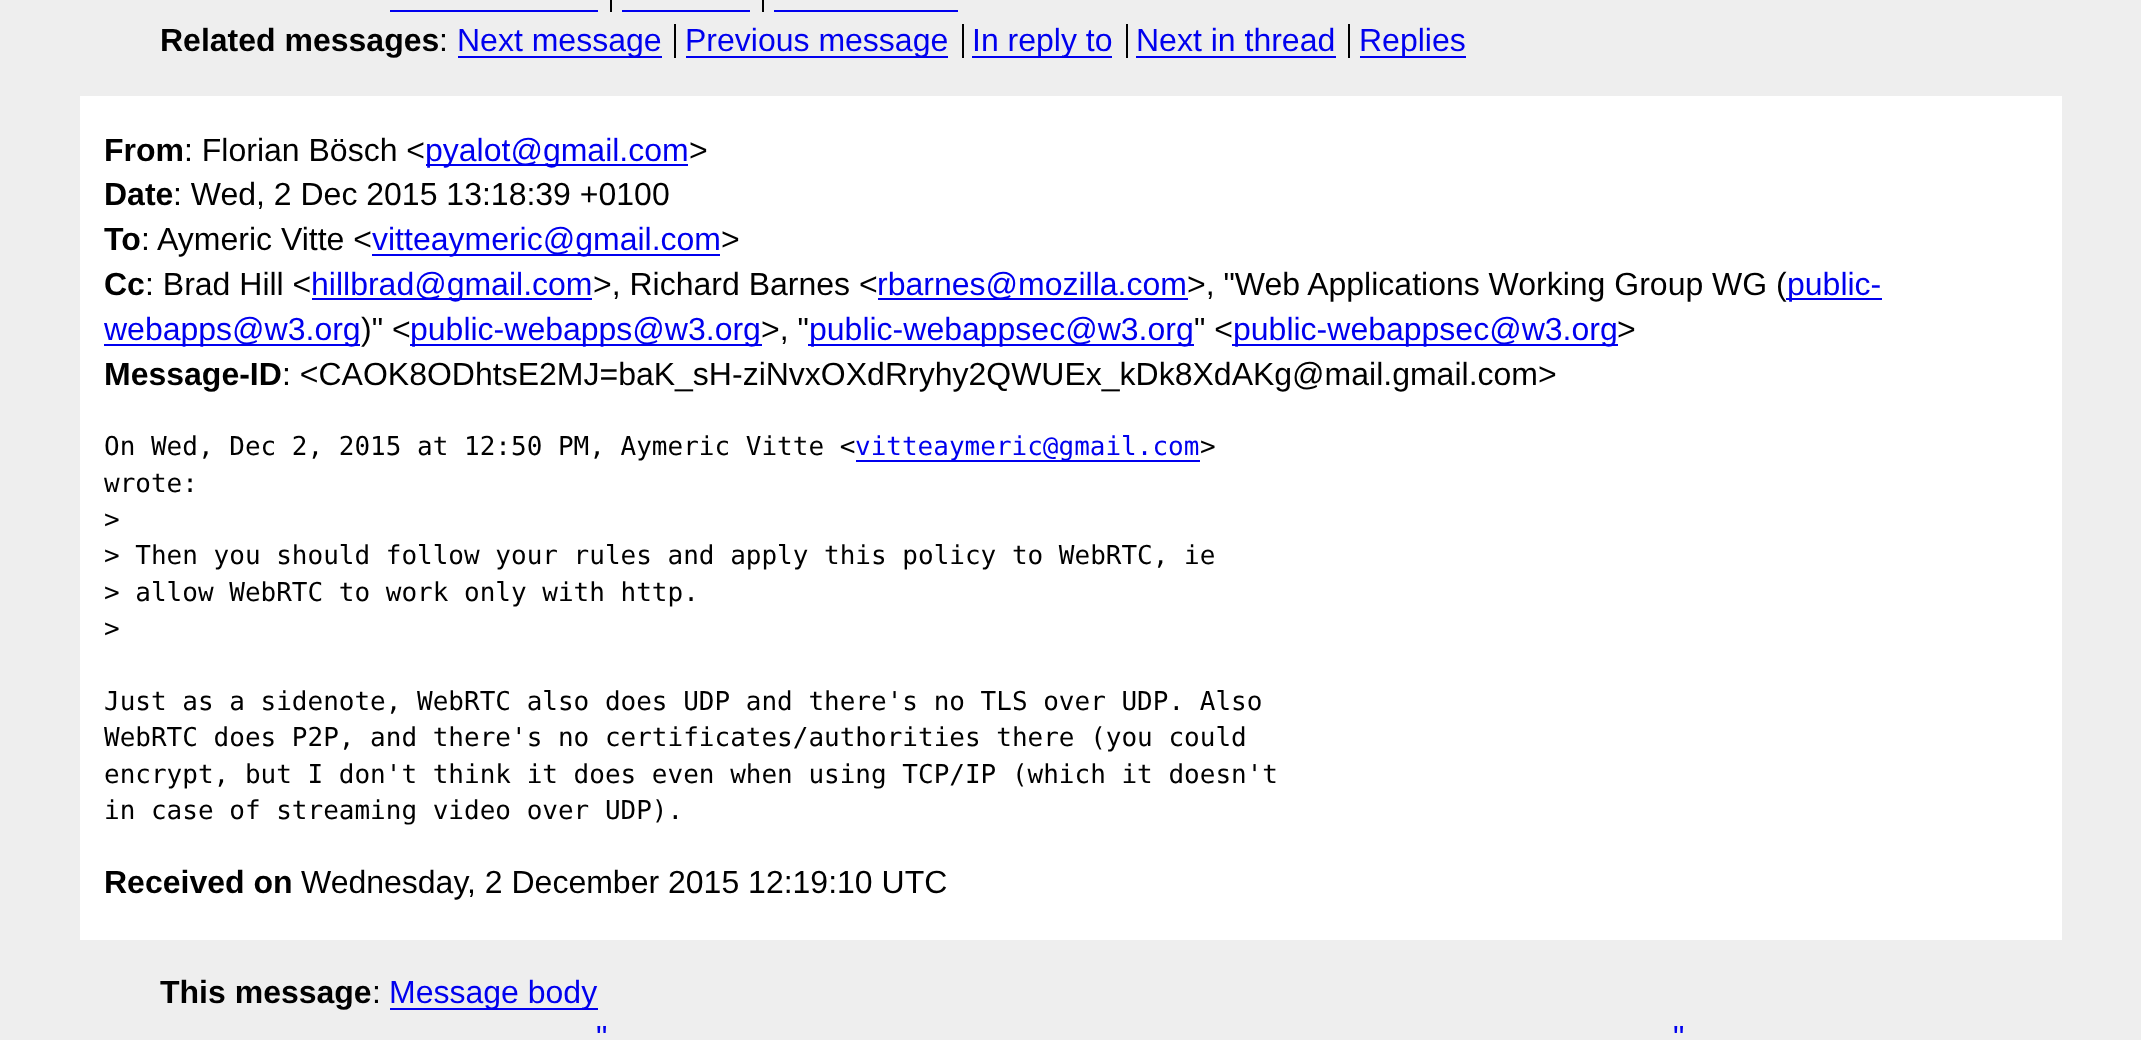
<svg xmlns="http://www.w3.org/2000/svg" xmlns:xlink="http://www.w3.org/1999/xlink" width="2141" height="1040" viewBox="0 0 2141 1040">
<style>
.cls-1{font:bold 32px Liberation Sans;fill:#000000}
.cls-2{font:32px Liberation Sans;fill:#000000}
.cls-3{font:32px Liberation Sans;fill:#0000ee}
.cls-4{font:26px DejaVu Sans Mono;fill:#000000}
.cls-5{font:26px DejaVu Sans Mono;fill:#0000ee}
</style>
<rect width="100%" height="100%" fill="#eeeeee"/>
<rect fill="#0000ee" x="390" y="10" width="208" height="2"/>
<rect fill="#000000" x="610" y="0" width="2" height="12"/>
<rect fill="#0000ee" x="622" y="10" width="128" height="2"/>
<rect fill="#000000" x="762" y="0" width="2" height="12"/>
<rect fill="#0000ee" x="774" y="10" width="184" height="2"/>
<rect fill="#0000ee" x="458" y="56" width="204" height="2"/>
<rect fill="#000000" x="674" y="24" width="2" height="34"/>
<rect fill="#0000ee" x="686" y="56" width="262" height="2"/>
<rect fill="#000000" x="962" y="24" width="2" height="34"/>
<rect fill="#0000ee" x="972" y="56" width="140" height="2"/>
<rect fill="#000000" x="1126" y="24" width="2" height="34"/>
<rect fill="#0000ee" x="1136" y="56" width="200" height="2"/>
<rect fill="#000000" x="1348" y="24" width="2" height="34"/>
<rect fill="#0000ee" x="1360" y="56" width="106" height="2"/>
<rect fill="#ffffff" x="80" y="96" width="1982" height="844"/>
<rect fill="#0000ee" x="426" y="164" width="262" height="2"/>
<rect fill="#0000ee" x="372" y="254" width="348" height="2"/>
<rect fill="#0000ee" x="312" y="298" width="280" height="2"/>
<rect fill="#0000ee" x="878" y="298" width="310" height="2"/>
<rect fill="#0000ee" x="104" y="344" width="256" height="2"/>
<rect fill="#0000ee" x="410" y="344" width="352" height="2"/>
<rect fill="#0000ee" x="808" y="344" width="386" height="2"/>
<rect fill="#0000ee" x="1232" y="344" width="386" height="2"/>
<rect fill="#0000ee" x="856" y="460" width="344" height="2"/>
<rect fill="#0000ee" x="390" y="1008" width="208" height="2"/>
<text class="cls-1" x="160" y="51">Related messages</text>
<text class="cls-2" x="439" y="51">:</text>
<text class="cls-3" x="457" y="51">Next message</text>
<text class="cls-3" x="685" y="51">Previous message</text>
<text class="cls-3" x="972" y="51">In reply to</text>
<text class="cls-3" x="1136" y="51">Next in thread</text>
<text class="cls-3" x="1359" y="51">Replies</text>
<text class="cls-1" x="104" y="161">From</text>
<text class="cls-2" x="184" y="161">: Florian Bösch &lt;</text>
<text class="cls-3" x="425" y="161">pyalot@gmail.com</text>
<text class="cls-2" x="689" y="161">&gt;</text>
<text class="cls-1" x="104" y="205">Date</text>
<text class="cls-2" x="173" y="205">: Wed, 2 Dec 2015 13:18:39 +0100</text>
<text class="cls-1" x="104" y="250">To</text>
<text class="cls-2" x="141" y="250">: Aymeric Vitte &lt;</text>
<text class="cls-3" x="372" y="250">vitteaymeric@gmail.com</text>
<text class="cls-2" x="721" y="250">&gt;</text>
<text class="cls-1" x="104" y="295">Cc</text>
<text class="cls-2" x="145" y="295">: Brad Hill &lt;</text>
<text class="cls-3" x="311" y="295">hillbrad@gmail.com</text>
<text class="cls-2" x="593" y="295">&gt;, Richard Barnes &lt;</text>
<text class="cls-3" x="877" y="295">rbarnes@mozilla.com</text>
<text class="cls-2" x="1187" y="295">&gt;, "Web Applications Working Group WG (</text>
<rect fill="#0000ee" x="1786" y="298" width="96" height="2"/>
<text class="cls-3" x="1787" y="295">public-</text>
<text class="cls-3" x="104" y="340">webapps@w3.org</text>
<text class="cls-2" x="361" y="340">)" &lt;</text>
<text class="cls-3" x="410" y="340">public-webapps@w3.org</text>
<text class="cls-2" x="761" y="340">&gt;, "</text>
<text class="cls-3" x="809" y="340">public-webappsec@w3.org</text>
<text class="cls-2" x="1194" y="340">" &lt;</text>
<text class="cls-3" x="1233" y="340">public-webappsec@w3.org</text>
<text class="cls-2" x="1617" y="340">&gt;</text>
<text class="cls-1" x="104" y="385">Message-ID</text>
<text class="cls-2" x="282" y="385">: &lt;CAOK8ODhtsE2MJ=baK_sH-ziNvxOXdRryhy2QWUEx_kDk8XdAKg@mail.gmail.com&gt;</text>
<text class="cls-4" x="104" y="455">On Wed, Dec 2, 2015 at 12:50 PM, Aymeric Vitte &lt;</text>
<text class="cls-5" x="855" y="455">vitteaymeric@gmail.com</text>
<text class="cls-4" x="1200" y="455">&gt;</text>
<text class="cls-4"><tspan x="104" y="492">wrote:</tspan><tspan x="104" y="528">&gt;</tspan><tspan x="104" y="564">&gt; Then you should follow your rules and apply this policy to WebRTC, ie</tspan><tspan x="104" y="601">&gt; allow WebRTC to work only with http.</tspan><tspan x="104" y="637">&gt;</tspan></text>
<text class="cls-4"><tspan x="104" y="710">Just as a sidenote, WebRTC also does UDP and there's no TLS over UDP. Also</tspan><tspan x="104" y="746">WebRTC does P2P, and there's no certificates/authorities there (you could</tspan><tspan x="104" y="783">encrypt, but I don't think it does even when using TCP/IP (which it doesn't</tspan><tspan x="104" y="819">in case of streaming video over UDP).</tspan></text>
<text class="cls-1" x="104" y="893">Received on</text>
<text class="cls-2" x="301" y="893">Wednesday, 2 December 2015 12:19:10 UTC</text>
<text class="cls-1" x="160" y="1003">This message</text>
<text class="cls-2" x="372" y="1003">:</text>
<text class="cls-3" x="389" y="1003">Message body</text>
<text class="cls-3" x="596" y="1048">"</text>
<text class="cls-3" x="1673" y="1048">"</text>
</svg>
